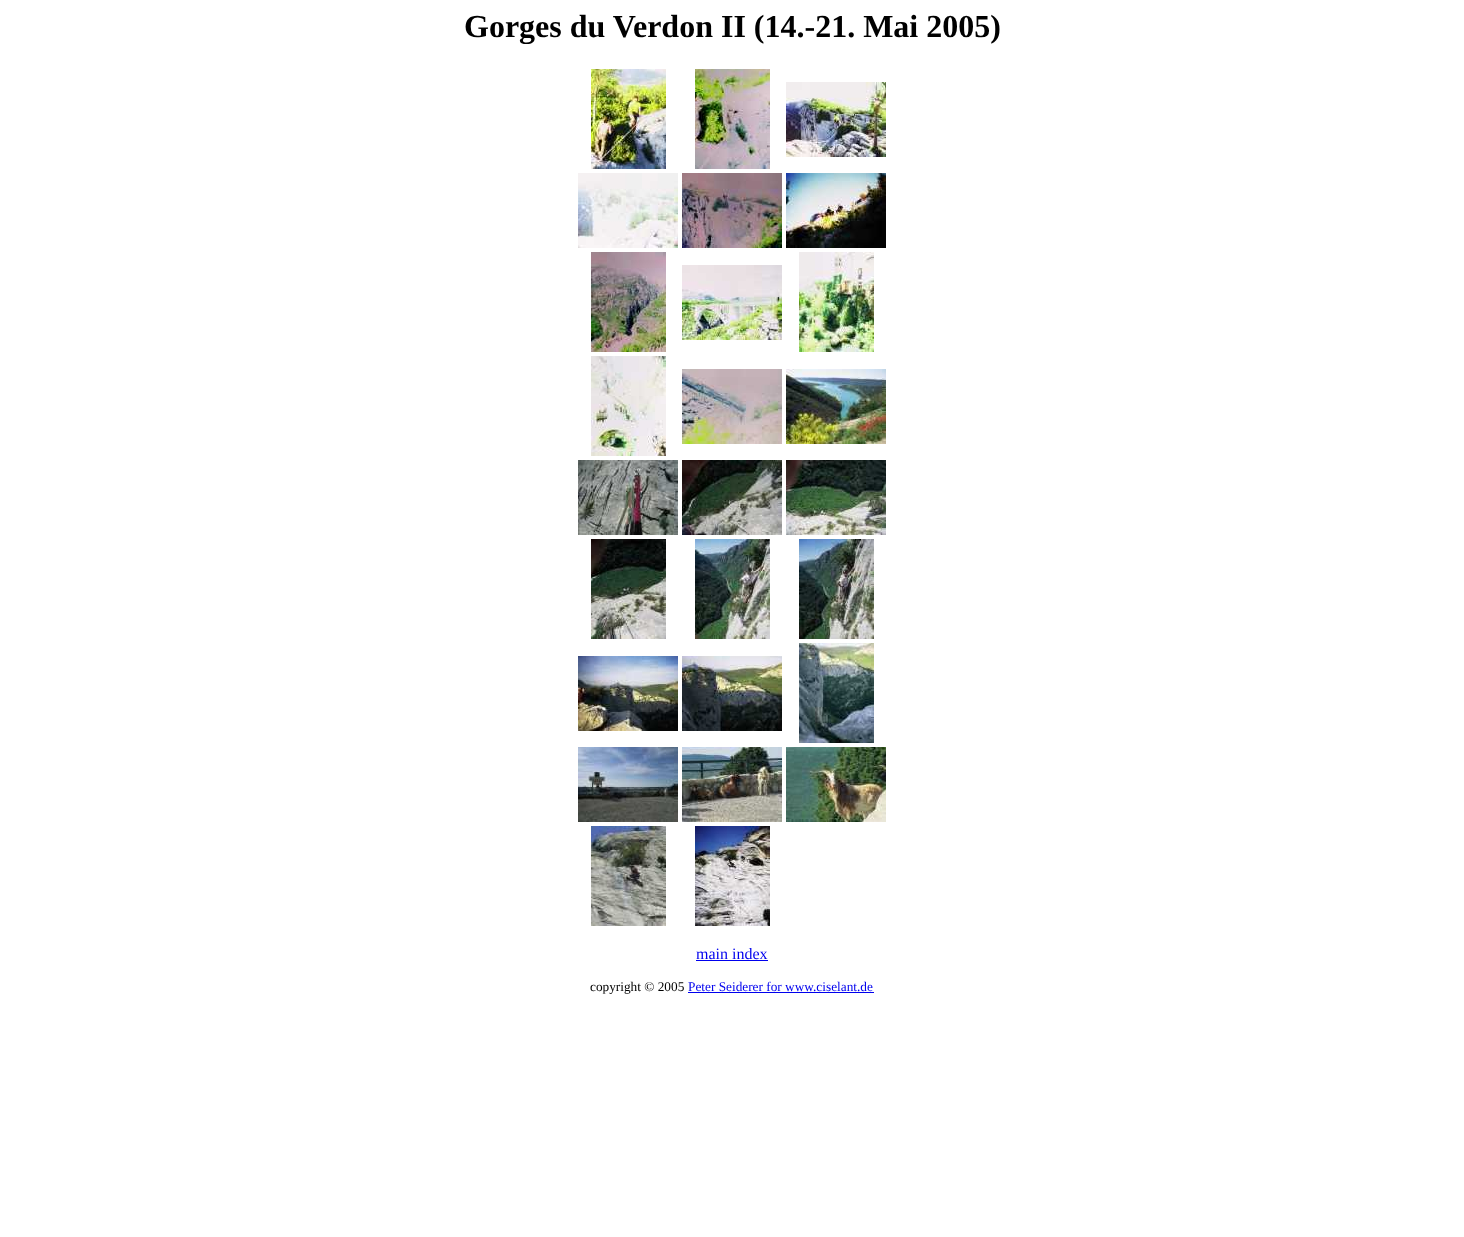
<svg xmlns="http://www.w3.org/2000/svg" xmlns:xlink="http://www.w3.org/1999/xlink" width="1464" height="1237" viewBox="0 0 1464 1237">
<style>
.cls-1{font:bold 32px Liberation Serif;fill:#000000}
.cls-2{font:16px Liberation Serif;fill:#0000ee}
.cls-3{font:13.3px Liberation Serif;fill:#000000}
.cls-4{font:13.3px Liberation Serif;fill:#0000ee}
</style>
<rect width="100%" height="100%" fill="#ffffff"/>
<image xlink:href="image0.png" x="591" y="69" width="75" height="100"/>
<image xlink:href="image1.png" x="695" y="69" width="75" height="100"/>
<image xlink:href="image2.png" x="786" y="82" width="100" height="75"/>
<image xlink:href="image3.png" x="578" y="173" width="100" height="75"/>
<image xlink:href="image4.png" x="682" y="173" width="100" height="75"/>
<image xlink:href="image5.png" x="786" y="173" width="100" height="75"/>
<image xlink:href="image6.png" x="591" y="252" width="75" height="100"/>
<image xlink:href="image7.png" x="682" y="265" width="100" height="75"/>
<image xlink:href="image8.png" x="799" y="252" width="75" height="100"/>
<image xlink:href="image9.png" x="591" y="356" width="75" height="100"/>
<image xlink:href="image10.png" x="682" y="369" width="100" height="75"/>
<image xlink:href="image11.png" x="786" y="369" width="100" height="75"/>
<image xlink:href="image12.png" x="578" y="460" width="100" height="75"/>
<image xlink:href="image13.png" x="682" y="460" width="100" height="75"/>
<image xlink:href="image14.png" x="786" y="460" width="100" height="75"/>
<image xlink:href="image15.png" x="591" y="539" width="75" height="100"/>
<image xlink:href="image16.png" x="695" y="539" width="75" height="100"/>
<image xlink:href="image17.png" x="799" y="539" width="75" height="100"/>
<image xlink:href="image18.png" x="578" y="656" width="100" height="75"/>
<image xlink:href="image19.png" x="682" y="656" width="100" height="75"/>
<image xlink:href="image20.png" x="799" y="643" width="75" height="100"/>
<image xlink:href="image21.png" x="578" y="747" width="100" height="75"/>
<image xlink:href="image22.png" x="682" y="747" width="100" height="75"/>
<image xlink:href="image23.png" x="786" y="747" width="100" height="75"/>
<image xlink:href="image24.png" x="591" y="826" width="75" height="100"/>
<image xlink:href="image25.png" x="695" y="826" width="75" height="100"/>
<rect fill="#0000ee" x="696" y="960" width="72" height="1"/>
<rect fill="#0000ee" x="688" y="992" width="186" height="1"/>
<text class="cls-1" x="464" y="37">Gorges du Verdon II (14.-21. Mai 2005)</text>
<text class="cls-2" x="696" y="959">main index</text>
<text class="cls-3" x="590" y="991">copyright © 2005</text>
<text class="cls-4" x="688" y="991">Peter Seiderer for www.ciselant.de</text>
</svg>
